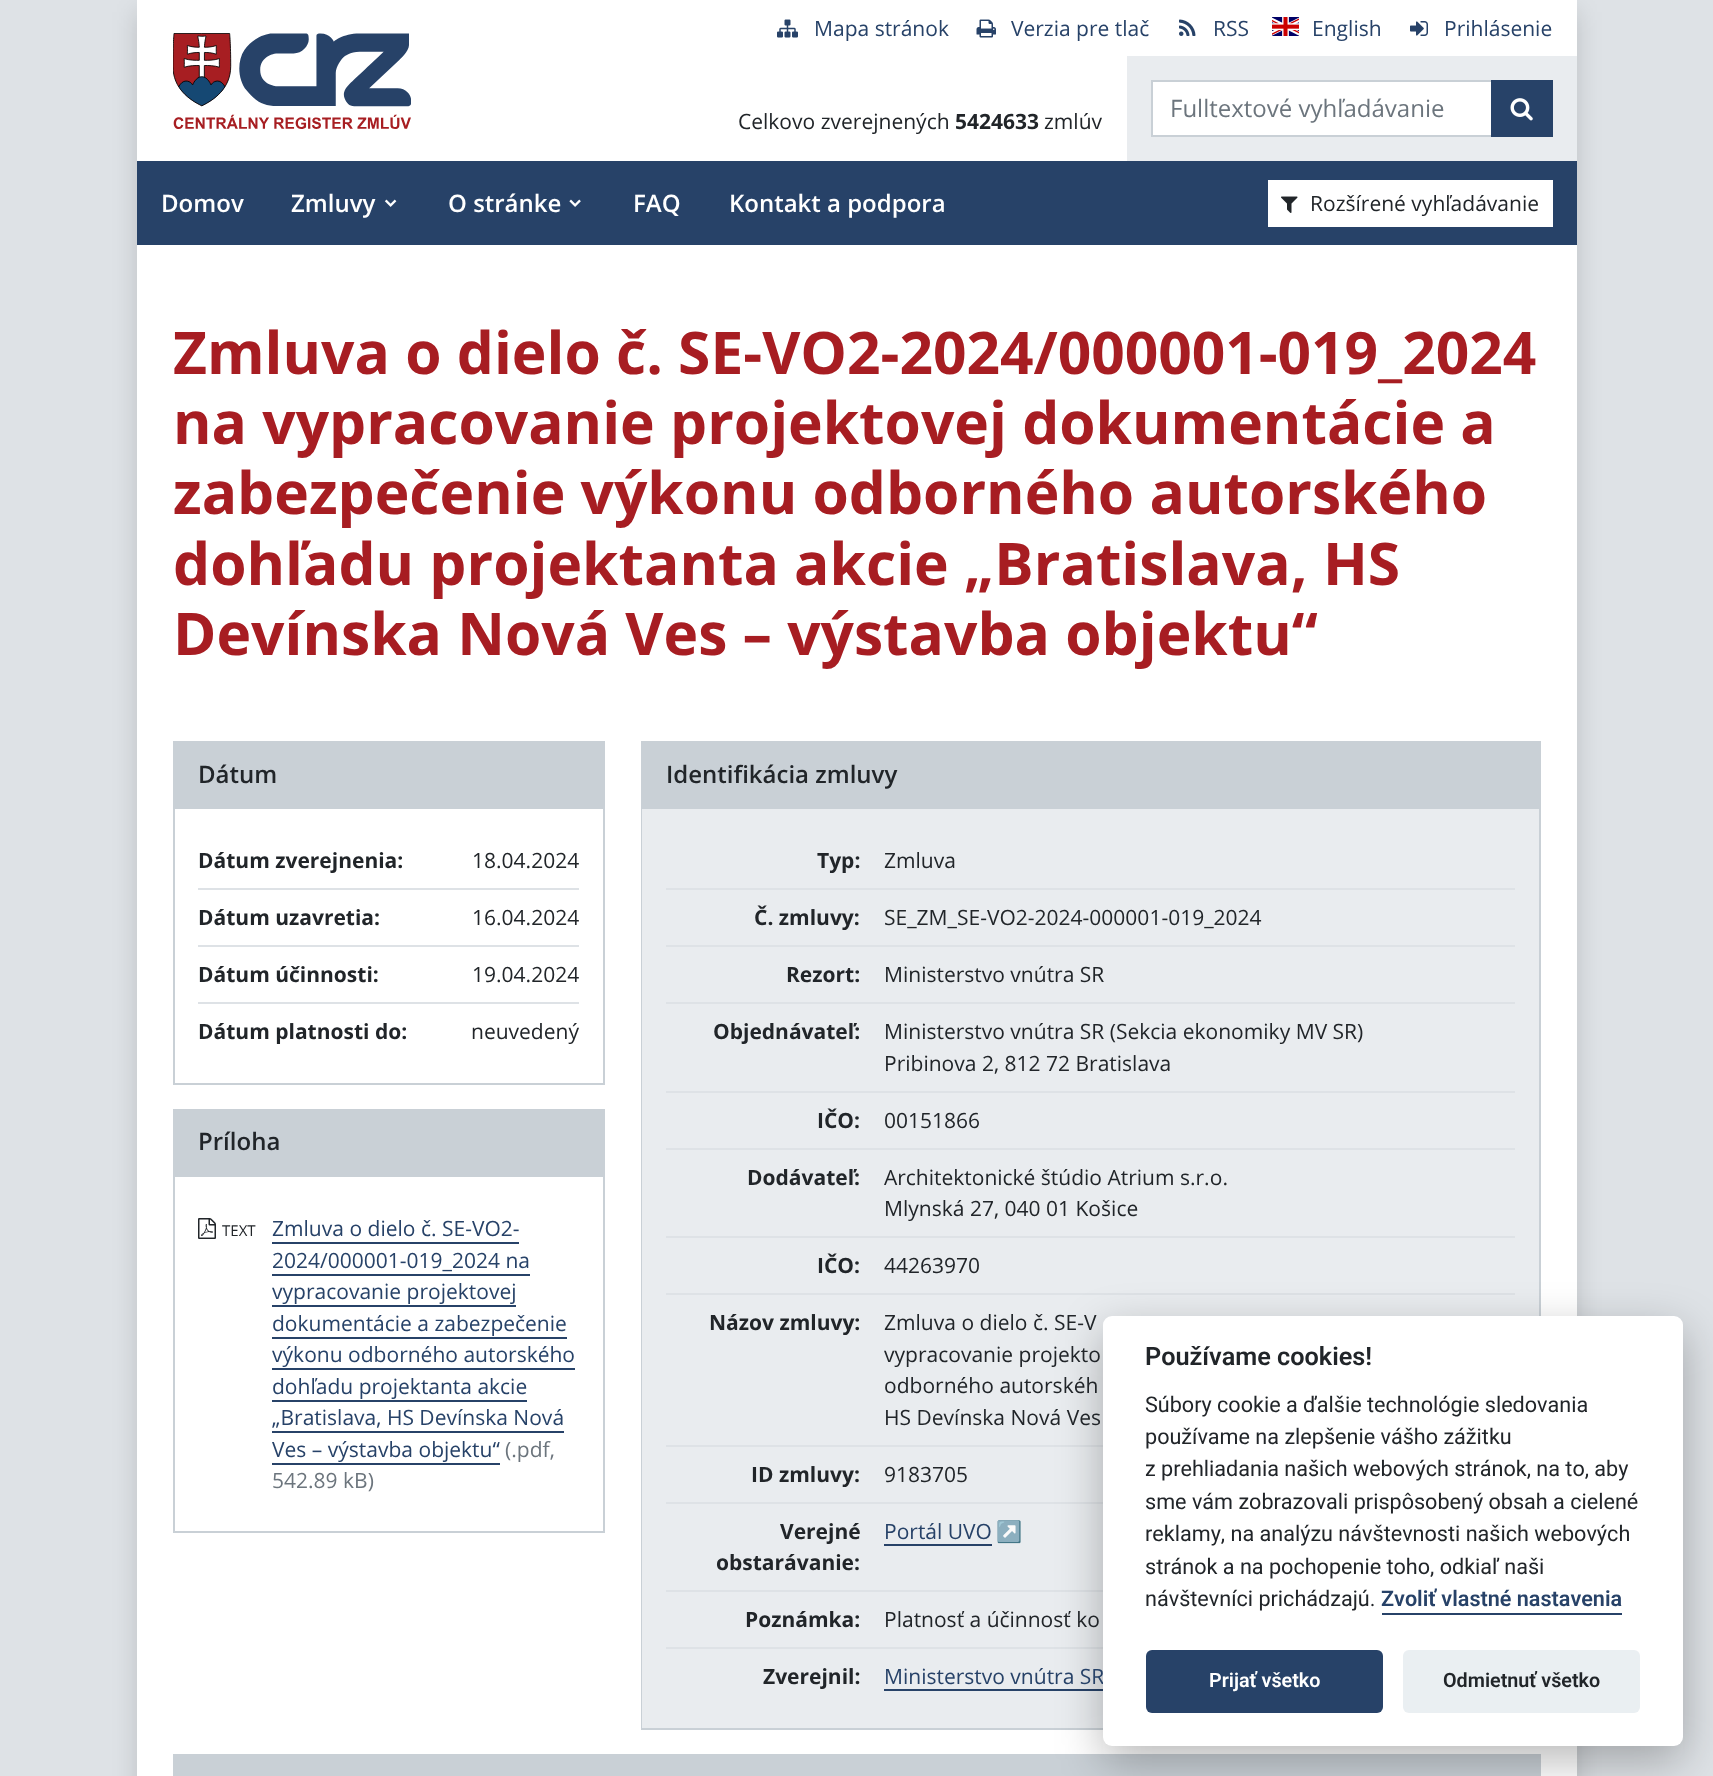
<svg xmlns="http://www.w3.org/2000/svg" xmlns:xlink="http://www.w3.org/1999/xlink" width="1713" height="1776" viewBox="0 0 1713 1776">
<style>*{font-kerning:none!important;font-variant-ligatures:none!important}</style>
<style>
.cls-1{font:21px Open Sans;fill:#274268}
.cls-2{font:21px Open Sans;fill:#212529}
.cls-3{font:bold 21px Open Sans;fill:#212529}
.cls-4{font:24px Open Sans;fill:#6c757d}
.cls-5{font:600 24px Open Sans;fill:#ffffff}
.cls-6{font:bold 58.7px Open Sans;fill:#a71d22}
.cls-7{font:600 24px Open Sans;fill:#212529}
.cls-8{font:15px Open Sans;fill:#212529}
.cls-9{font:21px Open Sans;fill:#6c757d}
.cls-10{font:21px Noto Color Emoji;fill:#274268}
.cls-11{font:600 25.25px Roboto;fill:#212529}
.cls-12{font:21.6px Roboto;fill:#212529}
.cls-13{font:600 21.6px Roboto;fill:#274268}
.cls-14{font:600 19.75px Roboto;fill:#ffffff}
.cls-15{font:600 19.75px Roboto;fill:#212529}
</style>
<rect width="100%" height="100%" fill="#dee2e6"/>
<rect fill="#000000" fill-opacity="0.15" filter="blur(12px)" x="137" y="12" width="1440" height="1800"/>
<rect fill="#ffffff" x="137" y="0" width="1440" height="1776"/>
<image xlink:href="image0.png" x="173" y="33" width="238" height="96"/>
<image xlink:href="image1.png" x="777" y="19" width="21" height="19"/>
<image xlink:href="image2.png" x="976" y="19" width="20" height="19"/>
<image xlink:href="image3.png" x="1179" y="19" width="17" height="17"/>
<image xlink:href="image4.png" x="1272" y="17" width="27" height="19"/>
<image xlink:href="image5.png" x="1410" y="21" width="18" height="15"/>
<rect fill="#e9ecef" x="1127" y="56" width="450" height="105"/>
<rect fill="#ffffff" stroke="#c9d0d6" stroke-width="2" x="1152" y="81" width="340" height="55"/>
<rect fill="#274268" x="1491" y="80" width="62" height="57"/>
<image xlink:href="image6.png" x="1510" y="98" width="23" height="23"/>
<rect fill="#274268" x="137" y="161" width="1440" height="84"/>
<image xlink:href="image7.png" x="384" y="199" width="13" height="8"/>
<image xlink:href="image8.png" x="569" y="199" width="12" height="8"/>
<rect fill="#ffffff" x="1268" y="180" width="285" height="47"/>
<image xlink:href="image9.png" x="1281" y="196" width="17" height="17"/>
<rect fill="none" stroke="#c9d0d6" stroke-width="2" x="174" y="742" width="430" height="342"/>
<rect fill="#c9d0d6" x="175" y="743" width="428" height="66"/>
<rect fill="#dee2e6" x="198" y="888" width="381" height="2"/>
<rect fill="#dee2e6" x="198" y="945" width="381" height="2"/>
<rect fill="#dee2e6" x="198" y="1002" width="381" height="2"/>
<rect fill="none" stroke="#c9d0d6" stroke-width="2" x="174" y="1110" width="430" height="422"/>
<rect fill="#c9d0d6" x="175" y="1111" width="428" height="64"/>
<rect fill="#c9d0d6" x="174" y="1175" width="429" height="2"/>
<image xlink:href="image10.png" x="198" y="1218" width="18" height="21"/>
<rect fill="#274268" x="272" y="1242" width="247" height="2"/>
<rect fill="#274268" x="272" y="1274" width="258" height="2"/>
<rect fill="#274268" x="272" y="1305" width="244" height="2"/>
<rect fill="#274268" x="272" y="1337" width="295" height="2"/>
<rect fill="#274268" x="272" y="1368" width="303" height="2"/>
<rect fill="#274268" x="272" y="1400" width="255" height="2"/>
<rect fill="#274268" x="272" y="1431" width="292" height="2"/>
<rect fill="#274268" x="272" y="1463" width="228" height="2"/>
<rect fill="none" stroke="#c9d0d6" stroke-width="2" x="642" y="742" width="898" height="987"/>
<rect fill="#c9d0d6" x="643" y="743" width="896" height="66"/>
<rect fill="#e9ecef" x="642" y="809" width="897" height="919"/>
<rect fill="#dee2e6" x="666" y="888" width="849" height="2"/>
<rect fill="#dee2e6" x="666" y="945" width="849" height="2"/>
<rect fill="#dee2e6" x="666" y="1002" width="849" height="2"/>
<rect fill="#dee2e6" x="666" y="1091" width="849" height="2"/>
<rect fill="#dee2e6" x="666" y="1148" width="849" height="2"/>
<rect fill="#dee2e6" x="666" y="1236" width="849" height="2"/>
<rect fill="#dee2e6" x="666" y="1293" width="849" height="2"/>
<rect fill="#dee2e6" x="666" y="1445" width="437" height="2"/>
<rect fill="#dee2e6" x="666" y="1502" width="437" height="2"/>
<rect fill="#274268" x="884" y="1544" width="108" height="2"/>
<rect fill="#dee2e6" x="666" y="1590" width="437" height="2"/>
<rect fill="#dee2e6" x="666" y="1647" width="437" height="2"/>
<rect fill="#274268" x="884" y="1689" width="219" height="2"/>
<rect fill="none" stroke="#c9d0d6" stroke-width="2" x="174" y="1755" width="1366" height="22"/>
<rect fill="#c9d0d6" x="175" y="1756" width="1364" height="20"/>
<rect fill="#020203" fill-opacity="0.28" filter="blur(22.5px)" x="1103" y="1331" width="580" height="430" rx="9"/>
<text class="cls-1" x="814" y="36">Mapa stránok</text>
<text class="cls-1" x="1011" y="36">Verzia pre tlač</text>
<text class="cls-1" x="1213" y="36">RSS</text>
<text class="cls-1" x="1312" y="36">English</text>
<text class="cls-1" x="1444" y="36">Prihlásenie</text>
<text class="cls-2" x="738" y="129">Celkovo zverejnených</text>
<text class="cls-3" x="955" y="129">5424633</text>
<text class="cls-2" x="1044" y="129">zmlúv</text>
<text class="cls-4" x="1170" y="117">Fulltextové vyhľadávanie</text>
<text class="cls-5" x="161" y="212">Domov</text>
<text class="cls-5" x="291" y="212">Zmluvy</text>
<text class="cls-5" x="448" y="212">O stránke</text>
<text class="cls-5" x="633" y="212">FAQ</text>
<text class="cls-5" x="729" y="212">Kontakt a podpora</text>
<text class="cls-2" x="1310" y="211">Rozšírené vyhľadávanie</text>
<text class="cls-6"><tspan x="173" y="374">Zmluva o dielo č. SE-VO2-2024/000001-019_2024</tspan><tspan x="173" y="444">na vypracovanie projektovej dokumentácie a</tspan><tspan x="173" y="514">zabezpečenie výkonu odborného autorského</tspan><tspan x="173" y="585">dohľadu projektanta akcie „Bratislava, HS</tspan><tspan x="173" y="655">Devínska Nová Ves – výstavba objektu“</tspan></text>
<text class="cls-7" x="198" y="783">Dátum</text>
<text class="cls-3" x="198" y="868">Dátum zverejnenia:</text>
<text class="cls-2" x="472" y="868">18.04.2024</text>
<text class="cls-3" x="198" y="925">Dátum uzavretia:</text>
<text class="cls-2" x="472" y="925">16.04.2024</text>
<text class="cls-3" x="198" y="982">Dátum účinnosti:</text>
<text class="cls-2" x="472" y="982">19.04.2024</text>
<text class="cls-3" x="198" y="1039">Dátum platnosti do:</text>
<text class="cls-2" x="471" y="1039">neuvedený</text>
<text class="cls-7" x="198" y="1150">Príloha</text>
<text class="cls-8" x="222" y="1236">TEXT</text>
<text class="cls-1"><tspan x="272" y="1236">Zmluva o dielo č. SE-VO2-</tspan><tspan x="272" y="1268">2024/000001-019_2024 na</tspan><tspan x="272" y="1299">vypracovanie projektovej</tspan><tspan x="272" y="1331">dokumentácie a zabezpečenie</tspan><tspan x="272" y="1362">výkonu odborného autorského</tspan><tspan x="272" y="1394">dohľadu projektanta akcie</tspan><tspan x="272" y="1425">„Bratislava, HS Devínska Nová</tspan><tspan x="272" y="1457">Ves – výstavba objektu“</tspan></text>
<text class="cls-9" x="505" y="1457">(.pdf,</text>
<text class="cls-9" x="272" y="1488">542.89 kB)</text>
<text class="cls-7" x="666" y="783">Identifikácia zmluvy</text>
<text class="cls-3" x="817" y="868">Typ:</text>
<text class="cls-2" x="884" y="868">Zmluva</text>
<text class="cls-3" x="754" y="925">Č. zmluvy:</text>
<text class="cls-2" x="884" y="925">SE_ZM_SE-VO2-2024-000001-019_2024</text>
<text class="cls-3" x="786" y="982">Rezort:</text>
<text class="cls-2" x="884" y="982">Ministerstvo vnútra SR</text>
<text class="cls-3" x="713" y="1039">Objednávateľ:</text>
<text class="cls-2"><tspan x="884" y="1039">Ministerstvo vnútra SR (Sekcia ekonomiky MV SR)</tspan><tspan x="884" y="1071">Pribinova 2, 812 72 Bratislava</tspan></text>
<text class="cls-3" x="817" y="1128">IČO:</text>
<text class="cls-2" x="884" y="1128">00151866</text>
<text class="cls-3" x="747" y="1185">Dodávateľ:</text>
<text class="cls-2"><tspan x="884" y="1185">Architektonické štúdio Atrium s.r.o.</tspan><tspan x="884" y="1216">Mlynská 27, 040 01 Košice</tspan></text>
<text class="cls-3" x="817" y="1273">IČO:</text>
<text class="cls-2" x="884" y="1273">44263970</text>
<text class="cls-3" x="709" y="1330">Názov zmluvy:</text>
<text class="cls-2"><tspan x="884" y="1330">Zmluva o dielo č. SE-V</tspan><tspan x="884" y="1362">vypracovanie projekto</tspan><tspan x="884" y="1393">odborného autorskéh</tspan><tspan x="884" y="1425">HS Devínska Nová Ves</tspan></text>
<text class="cls-3" x="751" y="1482">ID zmluvy:</text>
<text class="cls-2" x="884" y="1482">9183705</text>
<text class="cls-3" x="780" y="1539">Verejné</text>
<text class="cls-3" x="716" y="1570">obstarávanie:</text>
<text class="cls-1" x="884" y="1539">Portál UVO</text>
<text class="cls-10" x="996" y="1539">↗️</text>
<text class="cls-3" x="745" y="1627">Poznámka:</text>
<text class="cls-2" x="884" y="1627">Platnosť a účinnosť ko</text>
<text class="cls-3" x="763" y="1684">Zverejnil:</text>
<text class="cls-1" x="884" y="1684">Ministerstvo vnútra SR</text>
<rect fill="#ffffff" x="1103" y="1316" width="580" height="430" rx="9"/>
<text class="cls-11" x="1145" y="1365">Používame cookies!</text>
<text class="cls-12"><tspan x="1145" y="1412">Súbory cookie a ďalšie technológie sledovania</tspan><tspan x="1145" y="1444">používame na zlepšenie vášho zážitku</tspan><tspan x="1145" y="1476">z prehliadania našich webových stránok, na to, aby</tspan><tspan x="1145" y="1509">sme vám zobrazovali prispôsobený obsah a cielené</tspan><tspan x="1145" y="1541">reklamy, na analýzu návštevnosti našich webových</tspan><tspan x="1145" y="1574">stránok a na pochopenie toho, odkiaľ naši</tspan><tspan x="1145" y="1606">návštevníci prichádzajú.</tspan></text>
<text class="cls-13" x="1381" y="1606">Zvoliť vlastné nastavenia</text>
<rect fill="#274268" x="1382" y="1613" width="240" height="2"/>
<rect fill="#274268" x="1146" y="1650" width="237" height="63" rx="6"/>
<text class="cls-14" x="1209" y="1687">Prijať všetko</text>
<rect fill="#eaeff2" x="1403" y="1650" width="237" height="63" rx="6"/>
<text class="cls-15" x="1443" y="1687">Odmietnuť všetko</text>
</svg>
